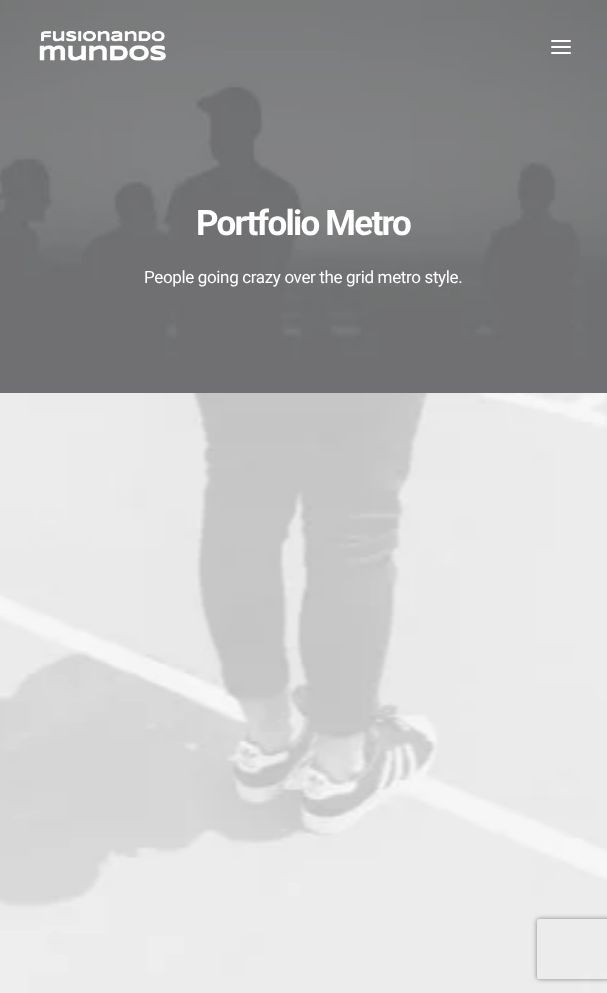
<svg xmlns="http://www.w3.org/2000/svg" xmlns:xlink="http://www.w3.org/1999/xlink" width="607" height="993" viewBox="0 0 607 993">
<style>
.cls-1{font:bold 35px Roboto;letter-spacing:-1.75px;fill:#ffffff}
.cls-2{font:17px Roboto;letter-spacing:-0.35px;fill:#ffffff}
</style>
<defs>
<clipPath id="clip1"><path d="M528 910H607V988H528ZM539 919H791C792 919 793 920 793 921V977C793 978 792 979 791 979H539C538 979 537 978 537 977V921C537 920 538 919 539 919Z" clip-rule="evenodd"/></clipPath>
</defs>
<rect width="100%" height="100%" fill="#ffffff"/>
<image xlink:href="image1.png" x="0" y="0" width="607" height="429"/>
<image xlink:href="image0.png" x="39" y="31" width="127" height="30"/>
<rect fill="#ffffff" x="551" y="46" width="20" height="2" rx="1"/>
<rect fill="#ffffff" x="551" y="40" width="20" height="2" rx="1"/>
<rect fill="#ffffff" x="551" y="52" width="20" height="2" rx="1"/>
<image xlink:href="image2.png" x="0" y="393" width="607" height="600"/>
<g clip-path="url(#clip1)">
<rect fill="#808080" filter="blur(2.5px)" x="537" y="919" width="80" height="60" rx="2"/>
</g>
<text class="cls-1" x="196" y="235">Portfolio Metro</text>
<text class="cls-2" x="144" y="283">People going crazy over the grid metro style.</text>
</svg>
